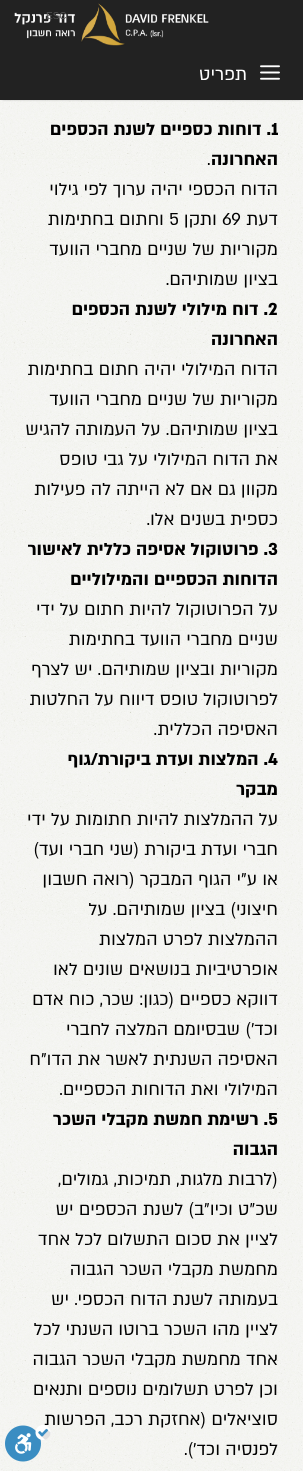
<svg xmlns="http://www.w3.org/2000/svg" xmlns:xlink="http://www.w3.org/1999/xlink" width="303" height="1471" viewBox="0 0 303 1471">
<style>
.cls-1{font:10px Liberation Sans;fill:#565656}
.cls-2{font:20px 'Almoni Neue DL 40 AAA';direction:rtl;fill:#ffffff}
.cls-3{font:bold 20px 'Almoni Neue DL 40 AAA';fill:#000000}
.cls-4{font:bold 20px 'Almoni Neue DL 40 AAA';direction:rtl;fill:#000000}
.cls-5{font:20px 'Almoni Neue DL 40 AAA';fill:#000000}
.cls-6{font:20px 'Almoni Neue DL 40 AAA';direction:rtl;fill:#000000}
</style>
<rect width="100%" height="100%" fill="#ffffff"/>
<image xlink:href="image3.png" x="0" y="100" width="303" height="1371"/>
<rect fill="#000000" fill-opacity="0.2" filter="blur(1px)" x="2" y="4" width="299" height="96"/>
<rect fill="#222222" x="0" y="0" width="303" height="100"/>
<image xlink:href="image1.png" x="14" y="3" width="195" height="43"/>
<image xlink:href="image2.png" x="260" y="65" width="20" height="15"/>
<text class="cls-1" x="46" y="19">ESC</text>
<text class="cls-2" x="247" y="80">תפריט</text>
<text class="cls-3" x="271" y="135">1</text>
<text class="cls-4" x="271" y="135">. דוחות כספיים לשנת הכספים</text>
<text class="cls-4" x="278" y="165">האחרונה</text>
<text class="cls-5" x="207" y="165">.</text>
<text class="cls-6"><tspan x="278" y="195">הדוח הכספי יהיה ערוך לפי גילוי</tspan><tspan x="278" y="225">דעת</tspan></text>
<text class="cls-5" x="222" y="225">69</text>
<text class="cls-6" x="217" y="225">ותקן</text>
<text class="cls-5" x="169" y="225">5</text>
<text class="cls-6" x="164" y="225">וחתום בחתימות</text>
<text class="cls-6"><tspan x="278" y="255">מקוריות של שניים מחברי הוועד</tspan><tspan x="278" y="285">בציון שמותיהם.</tspan></text>
<text class="cls-3" x="268" y="315">2</text>
<text class="cls-4" x="268" y="315">. דוח מילולי לשנת הכספים</text>
<text class="cls-4" x="278" y="345">האחרונה</text>
<text class="cls-6"><tspan x="278" y="375">הדוח המילולי יהיה חתום בחתימות</tspan><tspan x="278" y="405">מקוריות של שניים מחברי הוועד</tspan><tspan x="278" y="435">בציון שמותיהם. על העמותה להגיש</tspan><tspan x="278" y="465">את הדוח המילולי על גבי טופס</tspan><tspan x="278" y="495">מקוון גם אם לא הייתה לה פעילות</tspan><tspan x="278" y="525">כספית בשנים אלו.</tspan></text>
<text class="cls-3" x="268" y="555">3</text>
<text class="cls-4" x="268" y="555">. פרוטוקול אסיפה כללית לאישור</text>
<text class="cls-4" x="278" y="585">הדוחות הכספיים והמילוליים</text>
<text class="cls-6"><tspan x="278" y="615">על הפרוטוקול להיות חתום על ידי</tspan><tspan x="278" y="645">שניים מחברי הוועד בחתימות</tspan><tspan x="278" y="675">מקוריות ובציון שמותיהם. יש לצרף</tspan><tspan x="278" y="705">לפרוטוקול טופס דיווח על החלטות</tspan><tspan x="278" y="735">האסיפה הכללית.</tspan></text>
<text class="cls-3" x="268" y="765">4</text>
<text class="cls-4" x="268" y="765">. המלצות ועדת ביקורת/גוף</text>
<text class="cls-4" x="278" y="795">מבקר</text>
<text class="cls-6"><tspan x="278" y="825">על ההמלצות להיות חתומות על ידי</tspan><tspan x="278" y="855">חברי ועדת ביקורת (שני חברי ועד)</tspan><tspan x="278" y="885">או ע"י הגוף המבקר (רואה חשבון</tspan><tspan x="278" y="915">חיצוני) בציון שמותיהם. על</tspan><tspan x="278" y="945">ההמלצות לפרט המלצות</tspan><tspan x="278" y="975">אופרטיביות בנושאים שונים לאו</tspan><tspan x="278" y="1005">דווקא כספיים (כגון: שכר, כוח אדם</tspan><tspan x="278" y="1035">וכד') שבסיומם המלצה לחברי</tspan><tspan x="278" y="1065">האסיפה השנתית לאשר את הדו"ח</tspan><tspan x="278" y="1095">המילולי ואת הדוחות הכספיים.</tspan></text>
<text class="cls-3" x="268" y="1125">5</text>
<text class="cls-4" x="268" y="1125">. רשימת חמשת מקבלי השכר</text>
<text class="cls-4" x="278" y="1155">הגבוה</text>
<text class="cls-6"><tspan x="278" y="1185">(לרבות מלגות, תמיכות, גמולים,</tspan><tspan x="278" y="1215">שכ"ט וכיו"ב) לשנת הכספים יש</tspan><tspan x="278" y="1245">לציין את סכום התשלום לכל אחד</tspan><tspan x="278" y="1275">מחמשת מקבלי השכר הגבוה</tspan><tspan x="278" y="1305">בעמותה לשנת הדוח הכספי. יש</tspan><tspan x="278" y="1335">לציין מהו השכר ברוטו השנתי לכל</tspan><tspan x="278" y="1365">אחד מחמשת מקבלי השכר הגבוה</tspan><tspan x="278" y="1395">וכן לפרט תשלומים נוספים ותנאים</tspan><tspan x="278" y="1425">סוציאלים (אחזקת רכב, הפרשות</tspan></text>
<image xlink:href="image0.png" x="5" y="1425" width="46" height="37"/>
<text class="cls-6" x="278" y="1455">לפנסיה וכד').</text>
</svg>
